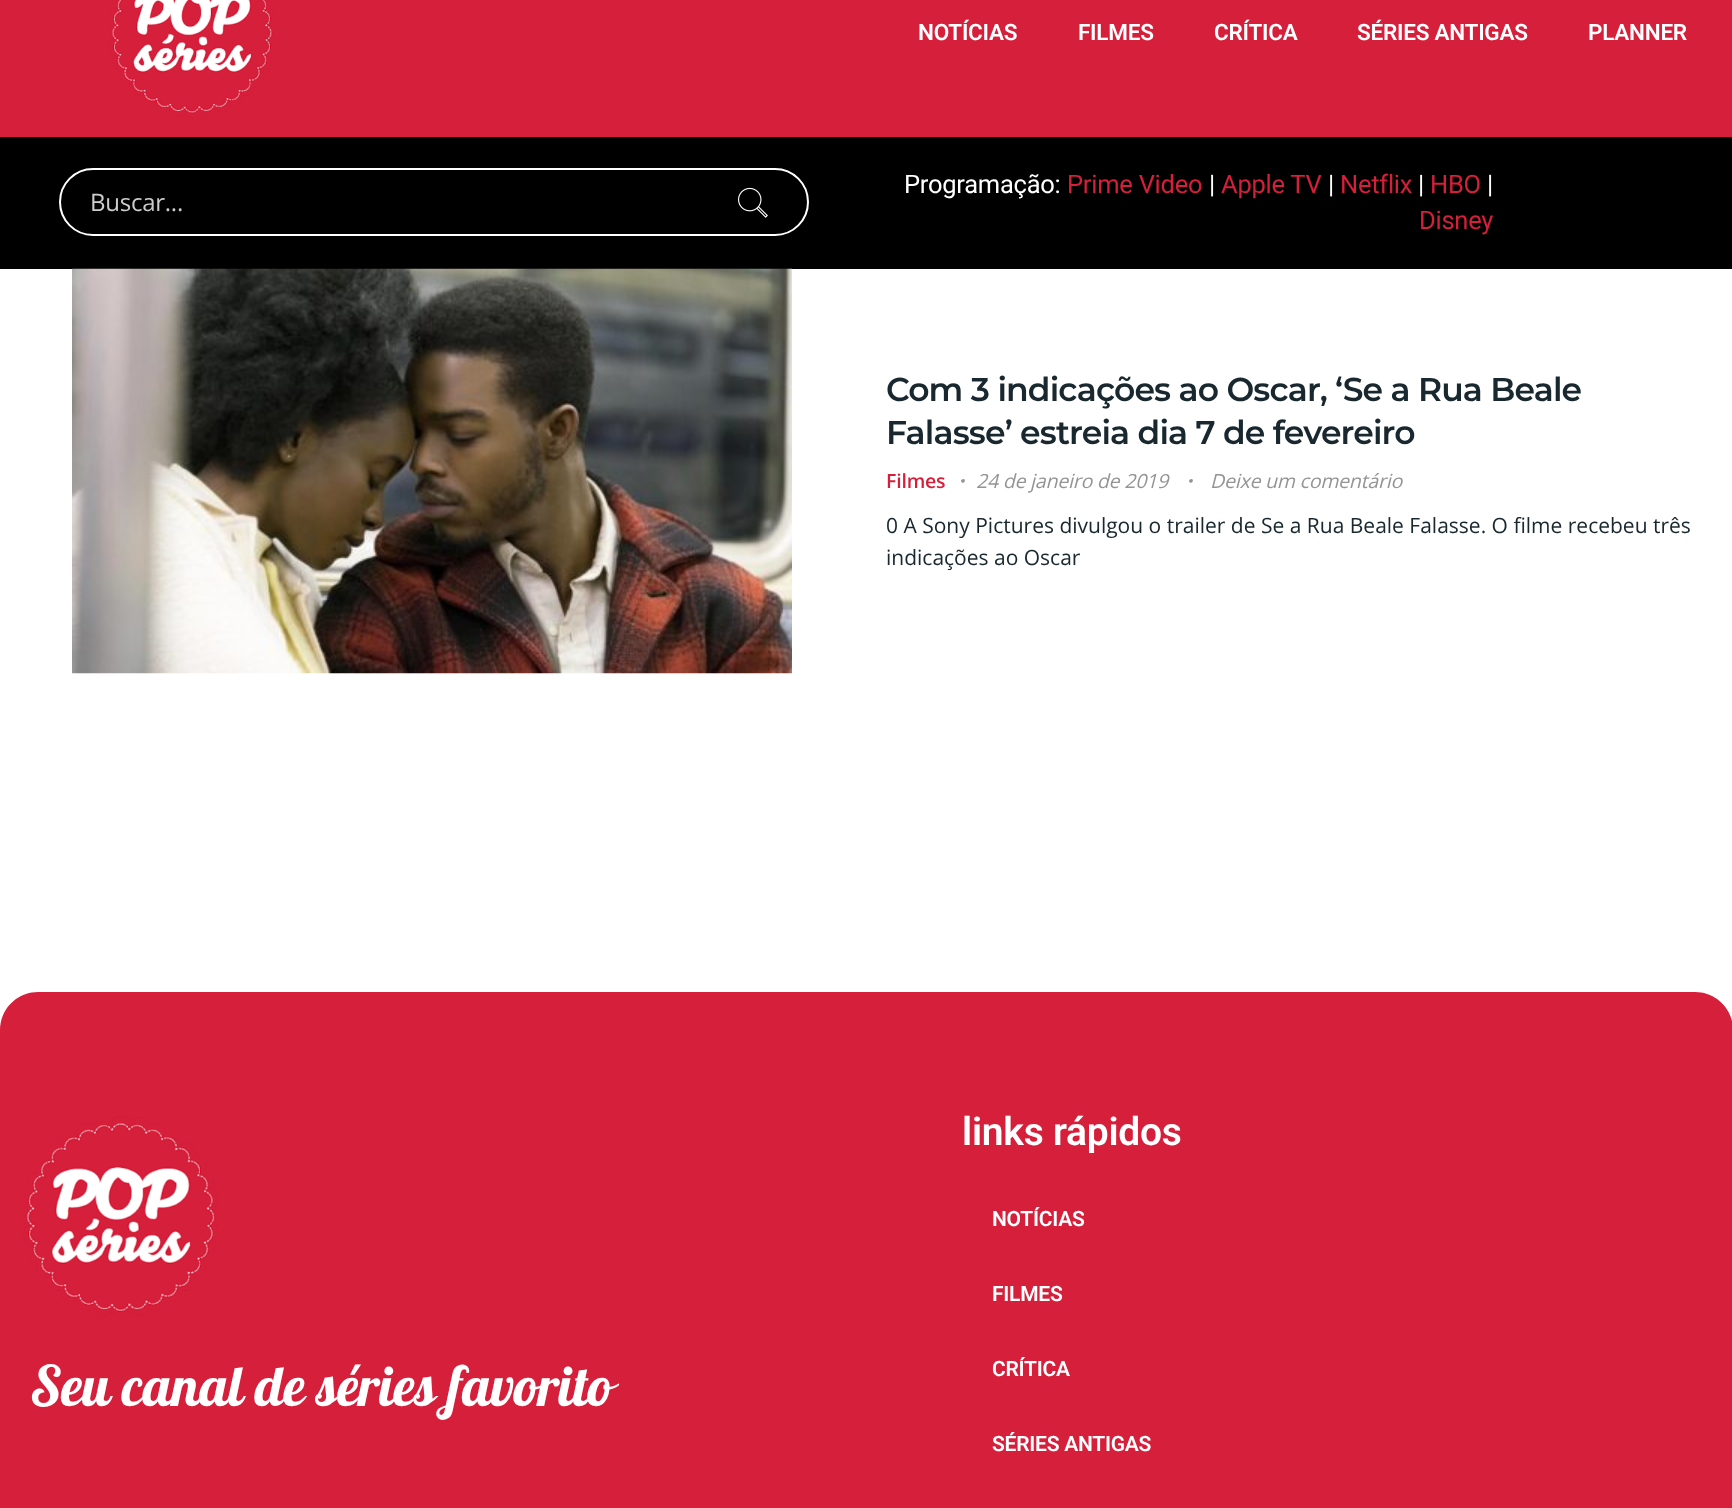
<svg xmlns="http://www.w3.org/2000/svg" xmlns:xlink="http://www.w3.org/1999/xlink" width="1732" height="1508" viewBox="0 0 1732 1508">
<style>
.cls-1{font:600 22.5px Roboto;letter-spacing:-0.25px;fill:#ffffff}
.cls-2{font:24px Open Sans;letter-spacing:-0.25px;fill:#cccccc}
.cls-3{font:25.5px Roboto;letter-spacing:-0.25px;fill:#ffffff}
.cls-4{font:25.5px Roboto;letter-spacing:-0.25px;fill:#d51f3b}
.cls-5{font:600 33px Montserrat;letter-spacing:-0.85px;fill:#19272e}
.cls-6{font:600 19.5px Open Sans;letter-spacing:-0.2px;fill:#d51f3b}
.cls-7{font:italic bold 19.5px WenQuanYi Zen Hei;letter-spacing:-0.2px;fill:#949494}
.cls-8{font:italic 19.5px Open Sans;letter-spacing:-0.2px;fill:#949494}
.cls-9{font:21px Open Sans;fill:#19272e}
.cls-10{font:55.5px Lobster;letter-spacing:-0.25px;fill:#ffffff}
.cls-11{font:600 39px Roboto;letter-spacing:-0.25px;fill:#ffffff}
.cls-12{font:600 21px Roboto;letter-spacing:-0.25px;fill:#ffffff}
</style>
<rect width="100%" height="100%" fill="#ffffff"/>
<rect fill="#d51f3b" x="0" y="0" width="1732" height="137"/>
<image xlink:href="image0.png" x="108" y="0" width="167" height="118"/>
<rect fill="#000000" x="0" y="137" width="1732" height="132"/>
<rect fill="none" stroke="#ffffff" stroke-width="2" x="60" y="169" width="748" height="66" rx="33"/>
<image xlink:href="image1.png" x="738" y="187" width="30" height="31"/>
<image xlink:href="image2.png" x="72" y="268" width="720" height="406"/>
<path fill="#d51f3b" d="M38 992H1695C1716 992 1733 1009 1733 1030V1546H0V1030C0 1009 17 992 38 992Z"/>
<image xlink:href="image3.png" x="22" y="1116" width="197" height="200"/>
<text class="cls-1" x="918" y="40">NOTÍCIAS</text>
<text class="cls-1" x="1078" y="40">FILMES</text>
<text class="cls-1" x="1214" y="40">CRÍTICA</text>
<text class="cls-1" x="1357" y="40">SÉRIES ANTIGAS</text>
<text class="cls-1" x="1588" y="40">PLANNER</text>
<text class="cls-2" x="90" y="211">Buscar...</text>
<text class="cls-3" x="904" y="193">Programação:</text>
<text class="cls-4" x="1067" y="193">Prime Video</text>
<text class="cls-3" x="1209" y="193">|</text>
<text class="cls-4" x="1221" y="193">Apple TV</text>
<text class="cls-3" x="1328" y="193">|</text>
<text class="cls-4" x="1340" y="193">Netflix</text>
<text class="cls-3" x="1418" y="193">|</text>
<text class="cls-4" x="1430" y="193">HBO</text>
<text class="cls-3" x="1487" y="193">|</text>
<text class="cls-4" x="1419" y="229">Disney</text>
<text class="cls-5"><tspan x="886" y="401">Com 3 indicações ao Oscar, ‘Se a Rua Beale</tspan><tspan x="886" y="444">Falasse’ estreia dia 7 de fevereiro</tspan></text>
<text class="cls-6" x="886" y="488">Filmes</text>
<text class="cls-7" x="951" y="488">・</text>
<text class="cls-8" x="976" y="488">24 de janeiro de 2019</text>
<text class="cls-7" x="1179" y="488">・</text>
<text class="cls-8" x="1210" y="488">Deixe um comentário</text>
<text class="cls-9"><tspan x="886" y="533">0 A Sony Pictures divulgou o trailer de Se a Rua Beale Falasse. O filme recebeu três</tspan><tspan x="886" y="565">indicações ao Oscar</tspan></text>
<text class="cls-10" x="30" y="1406">Seu canal de séries favorito</text>
<text class="cls-11" x="962" y="1145">links rápidos</text>
<text class="cls-12" x="992" y="1226">NOTÍCIAS</text>
<text class="cls-12" x="992" y="1301">FILMES</text>
<text class="cls-12" x="992" y="1376">CRÍTICA</text>
<text class="cls-12" x="992" y="1451">SÉRIES ANTIGAS</text>
</svg>
